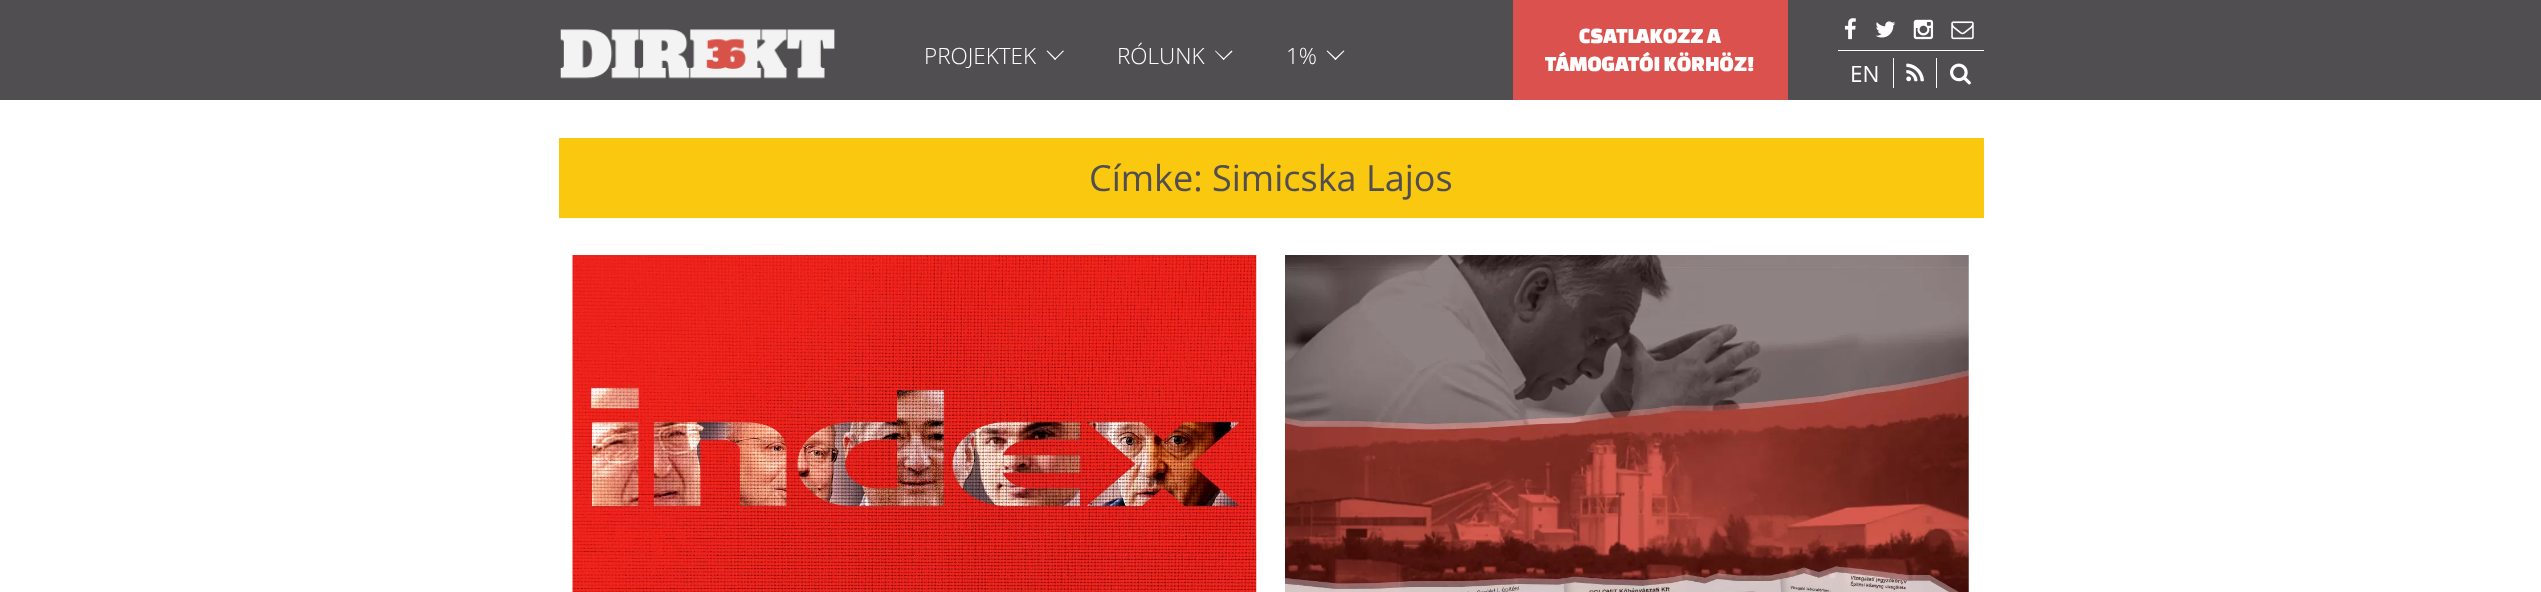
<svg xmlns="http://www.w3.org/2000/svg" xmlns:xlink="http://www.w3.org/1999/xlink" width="2541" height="592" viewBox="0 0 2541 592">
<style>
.cls-1{font:300 22.5px Open Sans;fill:#ffffff}
.cls-2{font:22.5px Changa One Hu;fill:#ffffff}
.cls-3{font:22.5px Open Sans;fill:#ffffff}
.cls-4{font:36px Open Sans;fill:#504e50}
</style>
<rect width="100%" height="100%" fill="#ffffff"/>
<rect fill="#504e50" x="0" y="0" width="2541" height="100"/>
<image xlink:href="image0.png" x="560" y="29" width="276" height="50"/>
<path fill="#ffffff" d="M1055 60L1046.5 51L1047.5 50.5L1056 59Z"/>
<path fill="#ffffff" d="M1055 60L1054.5 59L1063 50.5L1064 51Z"/>
<path fill="#ffffff" d="M1223.5 60L1215 51L1215.5 50.5L1224.5 59Z"/>
<path fill="#ffffff" d="M1223.5 60L1223 59L1231.5 50.5L1232.5 51.5Z"/>
<path fill="#ffffff" d="M1335.5 60L1326.5 51L1327.5 50.5L1336.5 59Z"/>
<path fill="#ffffff" d="M1335.5 60L1334.5 59L1343.5 50.5L1344.5 51Z"/>
<rect fill="#db514d" x="1513" y="0" width="275" height="100"/>
<rect fill="#ffffff" x="1838" y="50" width="146" height="1"/>
<image xlink:href="image1.png" x="1844" y="18" width="12" height="22"/>
<image xlink:href="image2.png" x="1875" y="21" width="21" height="17"/>
<image xlink:href="image3.png" x="1913" y="19" width="21" height="21"/>
<image xlink:href="image4.png" x="1951" y="21" width="23" height="19"/>
<rect fill="#ffffff" x="1893" y="58" width="1" height="30"/>
<rect fill="#ffffff" x="1936" y="58" width="1" height="30"/>
<image xlink:href="image5.png" x="1906" y="63" width="18" height="19"/>
<image xlink:href="image6.png" x="1950" y="63" width="21" height="22"/>
<rect fill="#fac80f" x="559" y="138" width="1425" height="80"/>
<image xlink:href="image7.png" x="572" y="255" width="685" height="337"/>
<image xlink:href="image8.png" x="1285" y="255" width="684" height="337"/>
<text class="cls-1" x="924" y="64">PROJEKTEK</text>
<text class="cls-1" x="1117" y="64">RÓLUNK</text>
<text class="cls-1" x="1286" y="64">1%</text>
<text class="cls-2" x="1579" y="43">CSATLAKOZZ A</text>
<text class="cls-2" x="1545" y="71">TÁMOGATÓI KÖRHÖZ!</text>
<text class="cls-3" x="1850" y="82">EN</text>
<text class="cls-4" x="1089" y="191">Címke: Simicska Lajos</text>
</svg>
